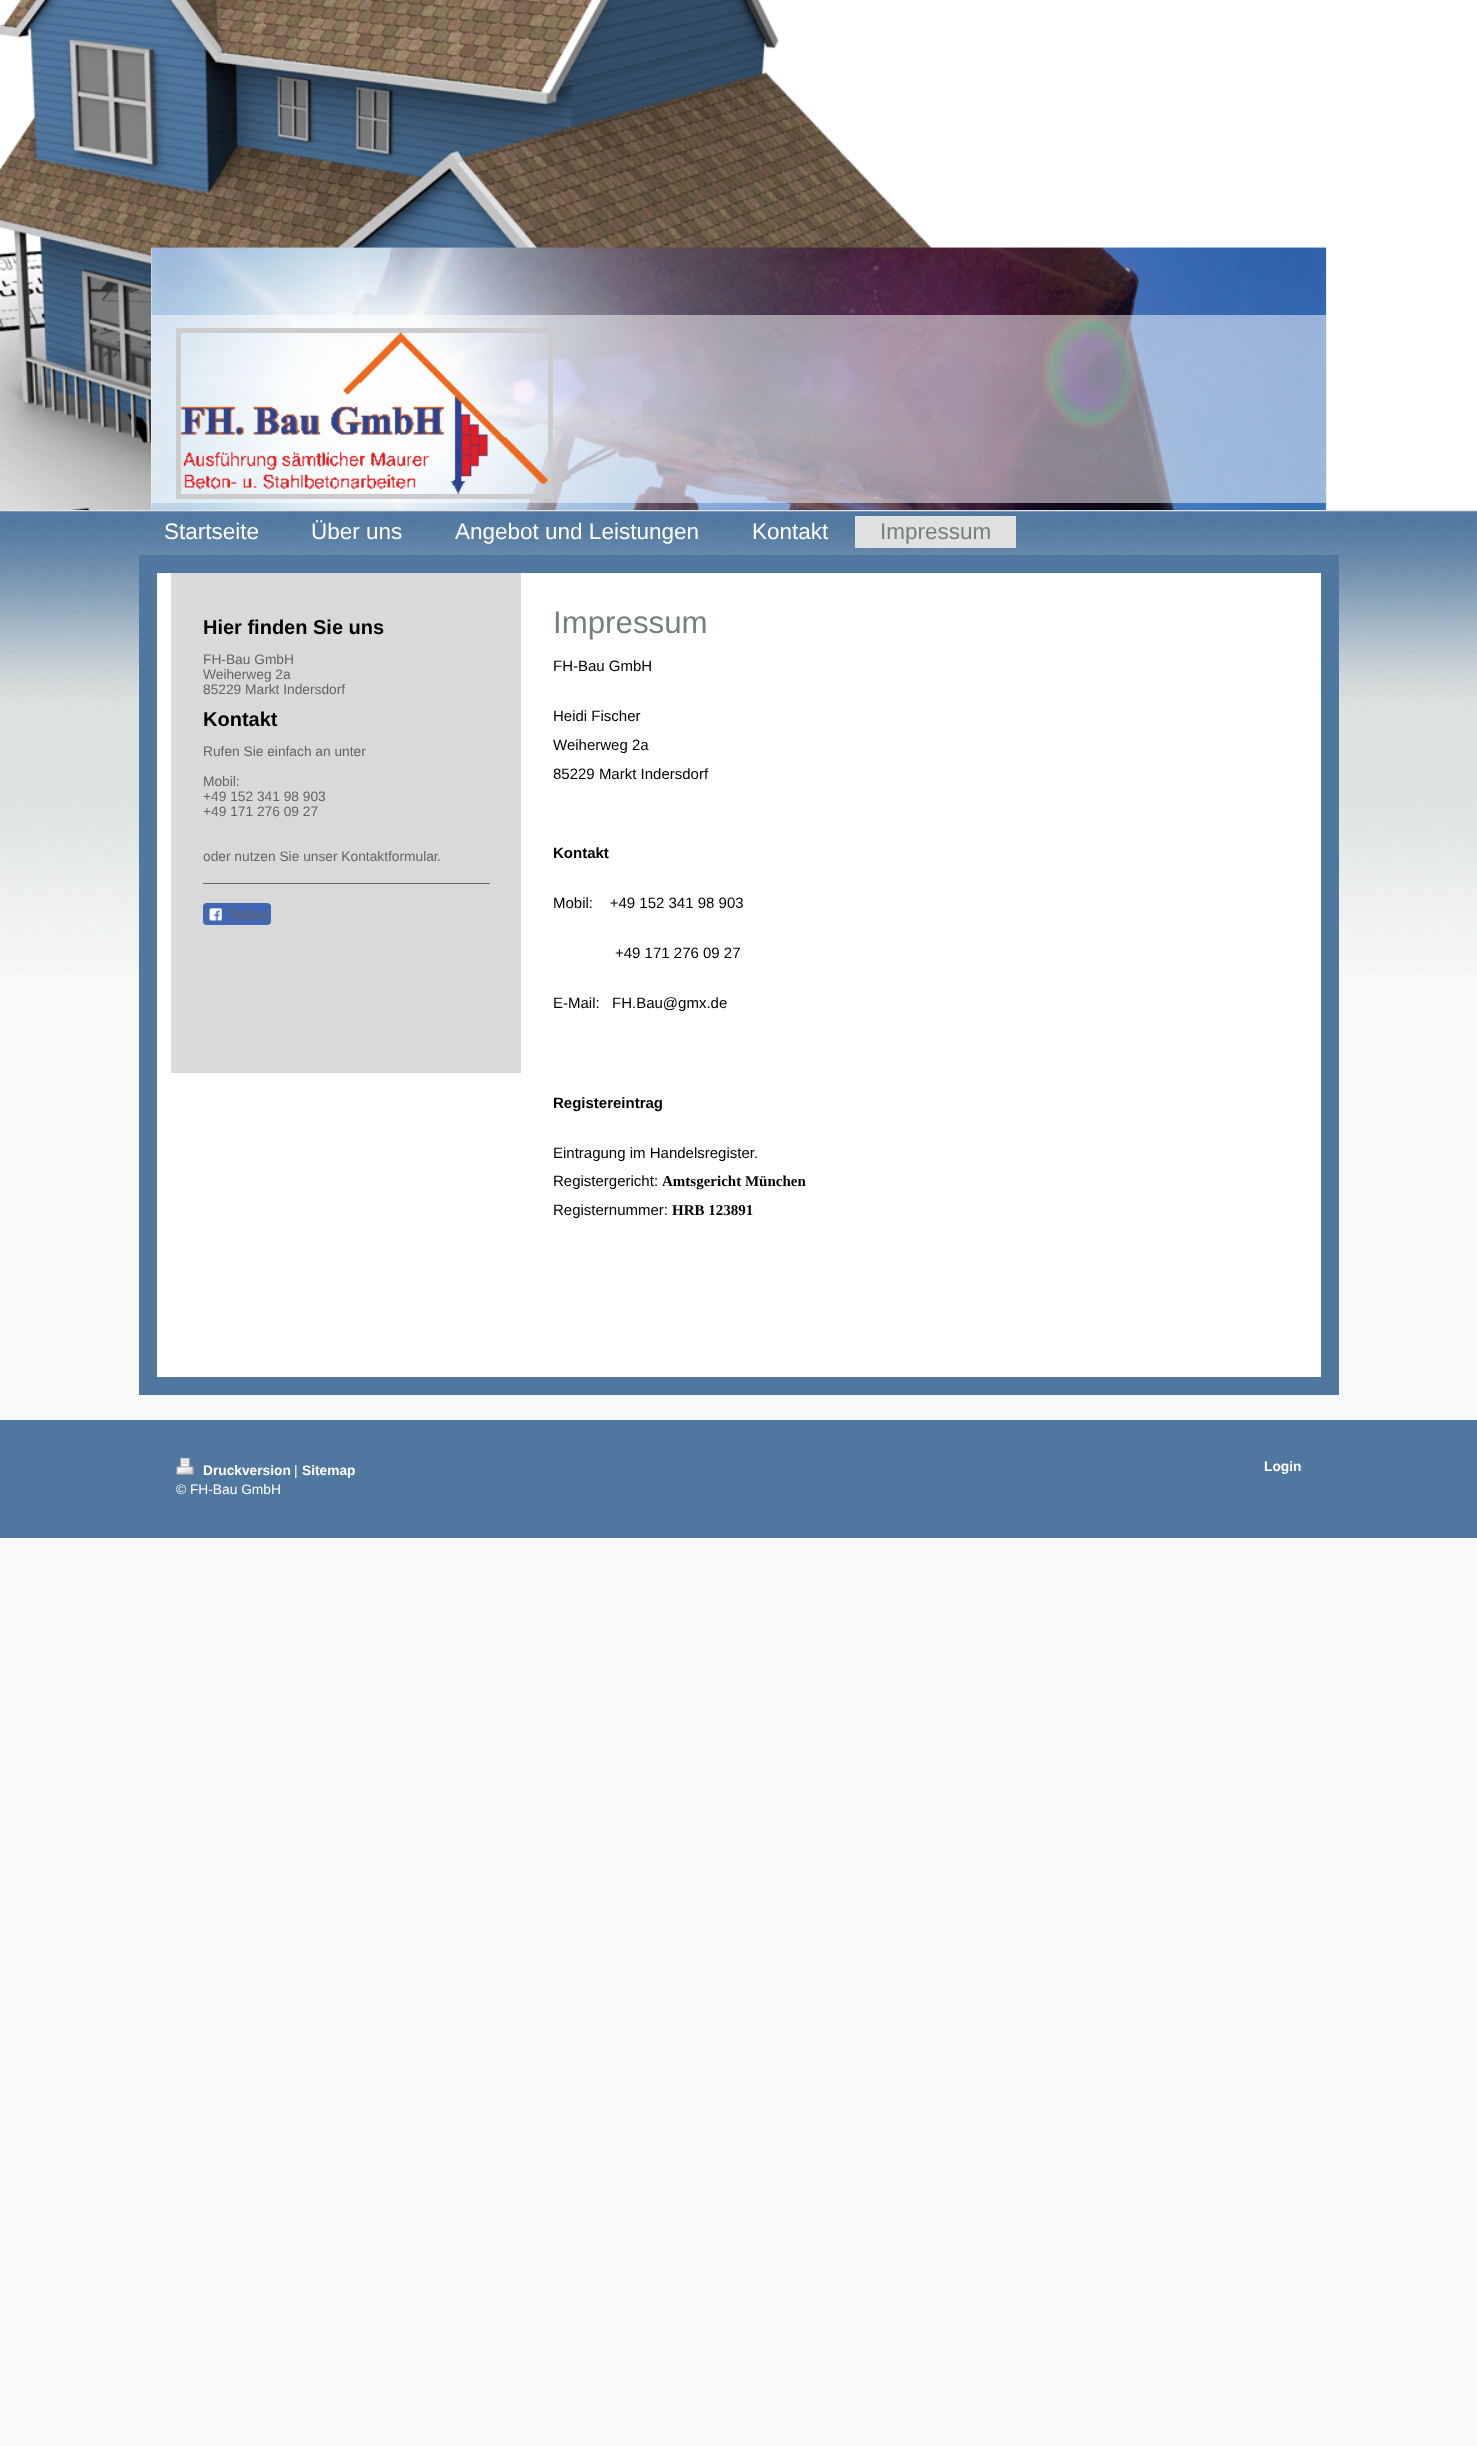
<svg xmlns="http://www.w3.org/2000/svg" xmlns:xlink="http://www.w3.org/1999/xlink" width="1477" height="2446" viewBox="0 0 1477 2446">
<style>
.cls-1{font:22.5px Liberation Sans;fill:#ffffff}
.cls-2{font:22.5px Liberation Sans;fill:#738177}
.cls-3{font:bold 20px Liberation Sans;fill:#000000}
.cls-4{font:13.75px Liberation Sans;fill:#646464}
.cls-5{font:15px Liberation Sans;fill:#646464}
.cls-6{font:31.25px Liberation Sans;fill:#738177}
.cls-7{font:15px Liberation Sans;fill:#000000}
.cls-8{font:bold 15px Liberation Sans;fill:#000000}
.cls-9{font:bold 15px Liberation Serif;fill:#000000}
.cls-10{font:bold 13.75px Liberation Sans;fill:#ffffff}
.cls-11{font:13.75px Liberation Sans;fill:#ffffff}
</style>
<rect width="100%" height="100%" fill="#f7f9f8"/>
<image xlink:href="image0.png" x="0" y="0" width="1477" height="510"/>
<image xlink:href="image1.png" x="151" y="247" width="1176" height="263"/>
<rect fill="#eeeeee" x="151" y="248" width="1" height="262"/>
<image xlink:href="image2.png" x="151" y="247" width="1176" height="263"/>
<rect fill="#ffffff" fill-opacity="0.5" x="151" y="315" width="1175" height="188"/>
<rect fill="none" stroke="#cccccc" stroke-width="5" x="178.5" y="330.5" width="372" height="166"/>
<image xlink:href="image3.png" x="181" y="332" width="367" height="162"/>
<image xlink:href="image4.png" x="0" y="510" width="1477" height="461"/>
<rect fill="#e1e1e1" x="855" y="516" width="161" height="32"/>
<rect fill="#ffffff" stroke="#5077a0" stroke-width="18" x="148" y="564" width="1182" height="822"/>
<rect fill="#d9d9d9" x="171" y="573" width="350" height="500"/>
<rect fill="#646464" x="203" y="883" width="287" height="1"/>
<rect fill="#4267b2" x="203" y="903" width="68" height="22" rx="4"/>
<image xlink:href="image5.png" x="209" y="908" width="13" height="13"/>
<rect fill="#5077a0" x="0" y="1420" width="1477" height="118"/>
<image xlink:href="image6.png" x="176" y="1457" width="18" height="18"/>
<text class="cls-1" x="164" y="539">Startseite</text>
<text class="cls-1" x="311" y="539">Über uns</text>
<text class="cls-1" x="455" y="539">Angebot und Leistungen</text>
<text class="cls-1" x="752" y="539">Kontakt</text>
<text class="cls-2" x="880" y="539">Impressum</text>
<text class="cls-3" x="203" y="634">Hier finden Sie uns</text>
<text class="cls-4"><tspan x="203" y="664">FH-Bau GmbH</tspan><tspan x="203" y="679">Weiherweg 2a</tspan><tspan x="203" y="694">85229 Markt Indersdorf</tspan></text>
<text class="cls-3" x="203" y="726">Kontakt</text>
<text class="cls-4" x="203" y="756">Rufen Sie einfach an unter</text>
<text class="cls-4"><tspan x="203" y="786">Mobil:</tspan><tspan x="203" y="801">+49 152 341 98 903</tspan><tspan x="203" y="816">+49 171 276 09 27</tspan></text>
<text class="cls-4" x="203" y="861">oder nutzen Sie unser Kontaktformular</text>
<text class="cls-4" x="437" y="861">.</text>
<text class="cls-5" x="228" y="920">Teilen</text>
<text class="cls-6" x="553" y="633">Impressum</text>
<text class="cls-7" x="553" y="671">FH-Bau GmbH</text>
<text class="cls-7"><tspan x="553" y="721">Heidi Fischer</tspan><tspan x="553" y="750">Weiherweg 2a</tspan><tspan x="553" y="779">85229 Markt Indersdorf</tspan></text>
<text class="cls-8" x="553" y="858">Kontakt</text>
<text class="cls-7" xml:space="preserve" x="553" y="908">Mobil:    +49 152 341 98 903</text>
<text class="cls-7" x="615" y="958">+49 171 276 09 27</text>
<text class="cls-7" x="553" y="1008">E-Mail:</text>
<text class="cls-7" x="612" y="1008">FH.Bau@gmx.de</text>
<text class="cls-8" x="553" y="1108">Registereintrag</text>
<text class="cls-7"><tspan x="553" y="1158">Eintragung im Handelsregister.</tspan><tspan x="553" y="1186">Registergericht:</tspan></text>
<text class="cls-9" x="662" y="1186">Amtsgericht München</text>
<text class="cls-7" x="553" y="1215">Registernummer:</text>
<text class="cls-9" x="672" y="1215">HRB 123891</text>
<text class="cls-10" x="203" y="1475">Druckversion</text>
<text class="cls-11" x="294" y="1475">|</text>
<text class="cls-10" x="302" y="1475">Sitemap</text>
<text class="cls-11" x="176" y="1494">© FH-Bau GmbH</text>
<text class="cls-10" x="1264" y="1471">Login</text>
</svg>
